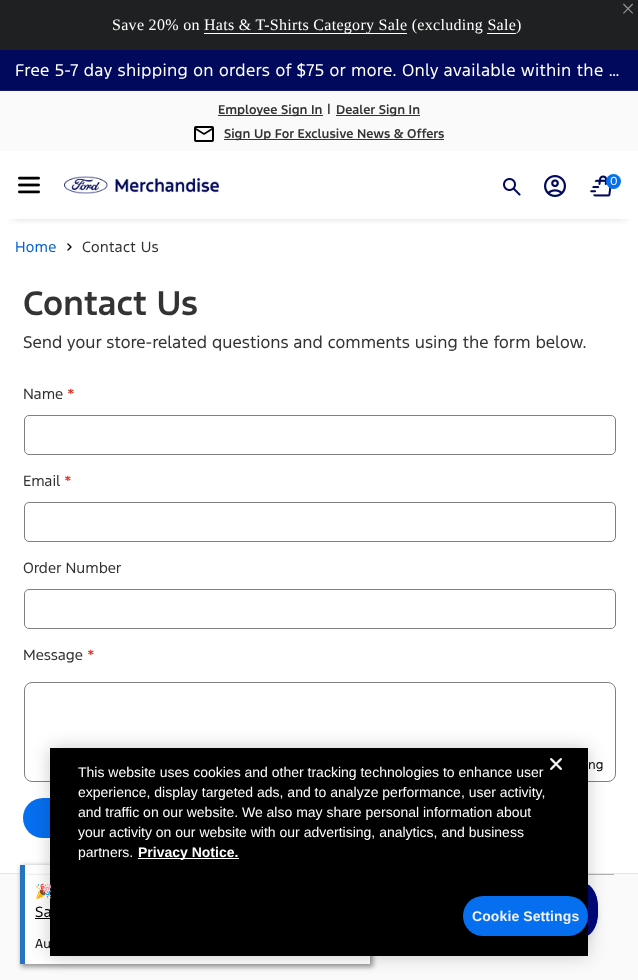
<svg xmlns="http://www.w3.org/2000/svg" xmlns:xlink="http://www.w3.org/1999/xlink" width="638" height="980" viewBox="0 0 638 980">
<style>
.cls-1{font:25px Liberation Serif;letter-spacing:0.3px;fill:#8f9090}
.cls-2{font:16px Liberation Serif;letter-spacing:0.3px;fill:#ffffff}
.cls-3{font:16px 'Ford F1';letter-spacing:0.3px;fill:#ffffff}
.cls-4{font:600 12px 'Ford F1';fill:#333333}
.cls-5{font:14px 'Ford F1';letter-spacing:0.3px;fill:#000000}
.cls-6{font:11px 'Ford F1';letter-spacing:0.3px;fill:#ffffff}
.cls-7{font:14px 'Ford F1';letter-spacing:0.3px;fill:#0562d2}
.cls-8{font:14px 'Ford F1';letter-spacing:0.3px;fill:#333333}
.cls-9{font:600 32px 'Ford F1';fill:#333333}
.cls-10{font:16px 'Ford F1';fill:#333333}
.cls-11{font:14px 'Ford F1';fill:#333333}
.cls-12{font:14px 'Ford F1';fill:#df2c21}
.cls-13{font:12px 'Ford F1';fill:#000000}
.cls-14{font:14px Liberation Sans;fill:#ffffff}
.cls-15{font:bold 14px Liberation Sans;fill:#ffffff}
.cls-16{font:bold 14px Liberation Sans;letter-spacing:0.1px;fill:#eff2f5}
.cls-17{font:14px Noto Color Emoji;letter-spacing:0.3px;fill:#000000}
.cls-18{font:12px 'Ford F1';letter-spacing:0.3px;fill:#000000}
</style>
<defs>
<clipPath id="clip1"><rect x="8" y="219" width="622" height="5"/></clipPath>
<clipPath id="clip2"><path d="M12 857H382V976H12ZM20 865H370V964H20Z" clip-rule="evenodd"/></clipPath>
</defs>
<rect width="100%" height="100%" fill="#ffffff"/>
<rect fill="#1f2021" x="0" y="0" width="638" height="50"/>
<rect fill="#ffffff" x="204" y="33" width="203" height="1"/>
<rect fill="#ffffff" x="487" y="33" width="29" height="1"/>
<rect fill="#00095b" x="0" y="50" width="638" height="40"/>
<rect fill="#121a66" x="0" y="90" width="638" height="1"/>
<g clip-path="url(#clip1)">
<rect fill="#121212" fill-opacity="0.6" filter="blur(6px)" x="12" y="109" width="614" height="104"/>
</g>
<rect fill="#fafafa" x="0" y="91" width="638" height="60"/>
<rect fill="#333333" x="218" y="115" width="105" height="1"/>
<rect fill="#333333" x="336" y="115" width="84" height="1"/>
<image xlink:href="image0.png" x="194" y="126" width="20" height="16"/>
<rect fill="#333333" x="224" y="139" width="220" height="1"/>
<image xlink:href="image1.png" x="18" y="176" width="22" height="18"/>
<image xlink:href="image2.png" x="64" y="176" width="155" height="18"/>
<image xlink:href="image3.png" x="503" y="178" width="18" height="18"/>
<image xlink:href="image4.png" x="544" y="175" width="22" height="22"/>
<image xlink:href="image5.png" x="590" y="175" width="22" height="22"/>
<circle fill="#066fef" cx="613.5" cy="181.5" r="7.5"/>
<image xlink:href="image6.png" x="67" y="243" width="5" height="8"/>
<rect fill="none" stroke="#808080" x="24.5" y="415.5" width="591" height="39" rx="4.5"/>
<rect fill="none" stroke="#808080" x="24.5" y="502.5" width="591" height="39" rx="4.5"/>
<rect fill="none" stroke="#808080" x="24.5" y="589.5" width="591" height="39" rx="4.5"/>
<rect fill="none" stroke="#808080" x="24.5" y="682.5" width="591" height="99" rx="7.5"/>
<rect fill="#066fef" x="23" y="798" width="126" height="40" rx="20"/>
<rect fill="#fafafa" x="0" y="874" width="638" height="106"/>
<rect fill="#e6e6e6" x="0" y="873" width="638" height="1"/>
<rect fill="#b2b2b2" x="588" y="874" width="26" height="1"/>
<rect fill="#000000" fill-opacity="0.1" filter="blur(3.5px)" x="538" y="884" width="60" height="60" rx="30"/>
<image xlink:href="image8.png" x="588" y="884" width="10" height="52"/>
<rect fill="#fefefe" x="25" y="875" width="345" height="89"/>
<rect fill="#fafafa" x="20" y="873" width="30" height="1"/>
<rect fill="#f0f0f0" x="24" y="874" width="26" height="1"/>
<g clip-path="url(#clip2)">
<rect fill="#000000" fill-opacity="0.4" filter="blur(2.5px)" x="21" y="866" width="352" height="101"/>
</g>
<rect fill="#2673bf" x="20" y="865" width="5" height="99"/>
<rect fill="#000000" x="35" y="918" width="15" height="1"/>
<rect fill="#000000" fill-opacity="0.2" filter="blur(9px)" x="50" y="748" width="538" height="208"/>
<rect fill="#000000" x="50" y="748" width="538" height="208"/>
<image xlink:href="image7.png" x="550" y="758" width="12" height="12"/>
<rect fill="#ffffff" x="138" y="858" width="101" height="1"/>
<rect fill="#066fef" x="463" y="896" width="125" height="40" rx="20"/>
<text class="cls-1" x="621" y="17">×</text>
<text class="cls-2" x="112" y="30">Save 20% on</text>
<text class="cls-2" x="204" y="30">Hats &amp; T-Shirts Category Sale (excluding Sale)</text>
<text class="cls-3" x="15" y="76">Free 5-7 day shipping on orders of $75 or more. Only available within the …</text>
<text class="cls-4" x="218" y="114">Employee Sign In</text>
<text class="cls-5" x="327" y="114">|</text>
<text class="cls-4" x="336" y="114">Dealer Sign In</text>
<text class="cls-4" x="224" y="138">Sign Up For Exclusive News &amp; Offers</text>
<text class="cls-6" x="610" y="185">0</text>
<text class="cls-7" x="15" y="252">Home</text>
<text class="cls-8" x="82" y="252">Contact Us</text>
<text class="cls-9" x="23" y="315">Contact Us</text>
<text class="cls-10" x="23" y="348">Send your store-related questions and comments using the form below.</text>
<text class="cls-11" x="23" y="399">Name</text>
<text class="cls-12" x="67" y="399">*</text>
<text class="cls-11" x="23" y="486">Email</text>
<text class="cls-12" x="64" y="486">*</text>
<text class="cls-11" x="23" y="573">Order Number</text>
<text class="cls-11" x="23" y="660">Message</text>
<text class="cls-12" x="87" y="660">*</text>
<text class="cls-13" x="588" y="769">ng</text>
<text class="cls-14"><tspan x="78" y="777">This website uses cookies and other tracking technologies to enhance user</tspan><tspan x="78" y="797">experience, display targeted ads, and to analyze performance, user activity,</tspan><tspan x="78" y="817">and traffic on our website. We also may share personal information about</tspan><tspan x="78" y="837">your activity on our website with our advertising, analytics, and business</tspan><tspan x="78" y="857">partners.</tspan></text>
<text class="cls-15" x="138" y="857">Privacy Notice.</text>
<text class="cls-16" x="472" y="921">Cookie Settings</text>
<text class="cls-17" x="35" y="896">🎉</text>
<text class="cls-5" x="35" y="917">Sa</text>
<text class="cls-18" x="35" y="948">Au</text>
</svg>
